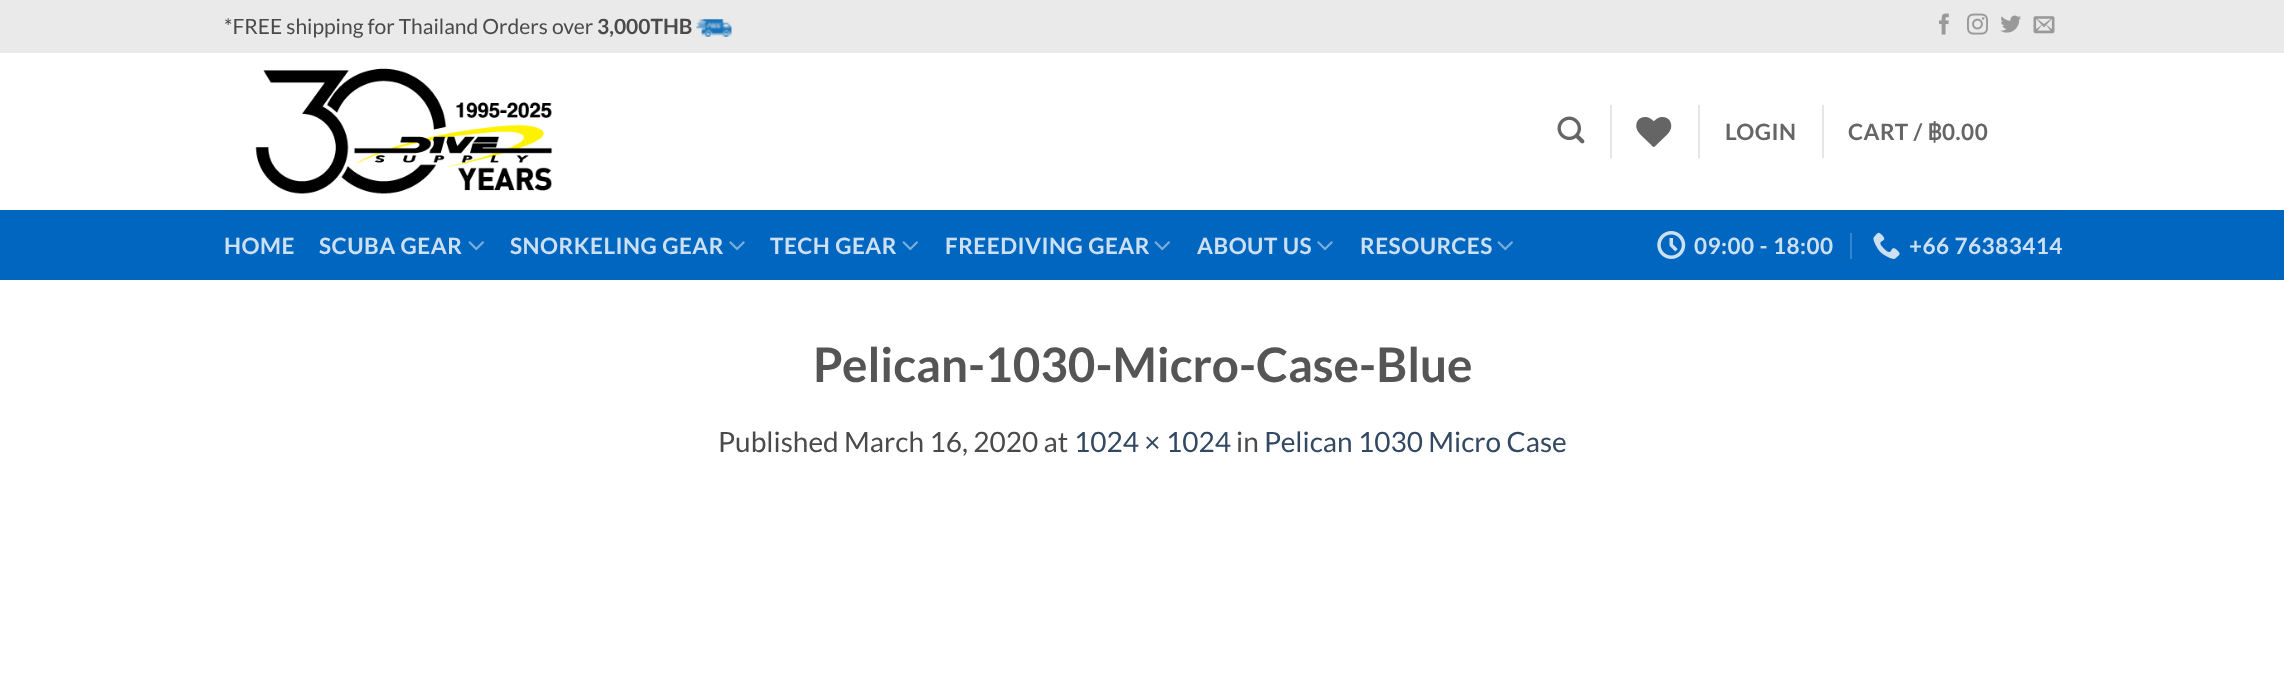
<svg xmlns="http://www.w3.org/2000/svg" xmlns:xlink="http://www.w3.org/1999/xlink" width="2284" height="687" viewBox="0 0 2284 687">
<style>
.cls-1{font:21px Lato;fill:#4a4a4a}
.cls-2{font:bold 21px Lato;fill:#4a4a4a}
.cls-3{font:bold 22.5px Lato;letter-spacing:0.5px;fill:#656565}
.cls-4{font:bold 22.5px 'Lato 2';letter-spacing:0.5px;fill:#656565}
.cls-5{font:bold 22.5px Lato;letter-spacing:0.5px;fill:#cce0f2}
.cls-6{font:bold 47.6px Lato;fill:#555555}
.cls-7{font:28px Lato;fill:#4a4a4a}
.cls-8{font:28px Lato;fill:#334862}
</style>
<rect width="100%" height="100%" fill="#ffffff"/>
<rect fill="#eaeaea" x="0" y="0" width="2284" height="53"/>
<image xlink:href="image0.png" x="696" y="19" width="36" height="18"/>
<image xlink:href="image1.png" x="1939" y="13" width="10" height="22"/>
<image xlink:href="image2.png" x="1967" y="13" width="21" height="22"/>
<image xlink:href="image3.png" x="2000" y="15" width="21" height="18"/>
<image xlink:href="image4.png" x="2033" y="16" width="22" height="18"/>
<image xlink:href="image5.png" x="255" y="68" width="298" height="126"/>
<image xlink:href="image6.png" x="1557" y="116" width="28" height="28"/>
<rect fill="#e6e6e6" x="1610" y="105" width="2" height="53"/>
<image xlink:href="image7.png" x="1636" y="117" width="36" height="30"/>
<rect fill="#e6e6e6" x="1698" y="105" width="2" height="53"/>
<rect fill="#e6e6e6" x="1822" y="105" width="2" height="53"/>
<rect fill="#0066bf" x="0" y="210" width="2284" height="70"/>
<rect fill="#0763b3" x="224" y="210" width="1838" height="2"/>
<image xlink:href="image8.png" x="468" y="241" width="16" height="10"/>
<image xlink:href="image9.png" x="729" y="241" width="16" height="10"/>
<image xlink:href="image8.png" x="902" y="241" width="16" height="10"/>
<image xlink:href="image8.png" x="1154" y="241" width="16" height="10"/>
<image xlink:href="image9.png" x="1317" y="241" width="16" height="10"/>
<image xlink:href="image8.png" x="1497" y="241" width="16" height="10"/>
<image xlink:href="image10.png" x="1657" y="231" width="29" height="28"/>
<rect fill="#3385cc" x="1850" y="233" width="2" height="26"/>
<image xlink:href="image11.png" x="1873" y="232" width="27" height="27"/>
<text class="cls-1" x="224" y="34">*FREE shipping for Thailand Orders over</text>
<text class="cls-2" x="597" y="34">3,000THB</text>
<text class="cls-3" x="1725" y="140">LOGIN</text>
<text class="cls-3" x="1848" y="140">CART /</text>
<text class="cls-4" x="1927" y="140">฿</text>
<text class="cls-3" x="1942" y="140">0.00</text>
<text class="cls-5" x="224" y="254">HOME</text>
<text class="cls-5" x="319" y="254">SCUBA GEAR</text>
<text class="cls-5" x="510" y="254">SNORKELING GEAR</text>
<text class="cls-5" x="770" y="254">TECH GEAR</text>
<text class="cls-5" x="945" y="254">FREEDIVING GEAR</text>
<text class="cls-5" x="1197" y="254">ABOUT US</text>
<text class="cls-5" x="1360" y="254">RESOURCES</text>
<text class="cls-5" x="1694" y="254">09:00 - 18:00</text>
<text class="cls-5" x="1909" y="254">+66 76383414</text>
<text class="cls-6" x="813" y="382">Pelican-1030-Micro-Case-Blue</text>
<text class="cls-7" x="718" y="452">Published March 16, 2020 at</text>
<text class="cls-8" x="1074" y="452">1024 × 1024</text>
<text class="cls-7" x="1236" y="452">in</text>
<text class="cls-8" x="1264" y="452">Pelican 1030 Micro Case</text>
</svg>
